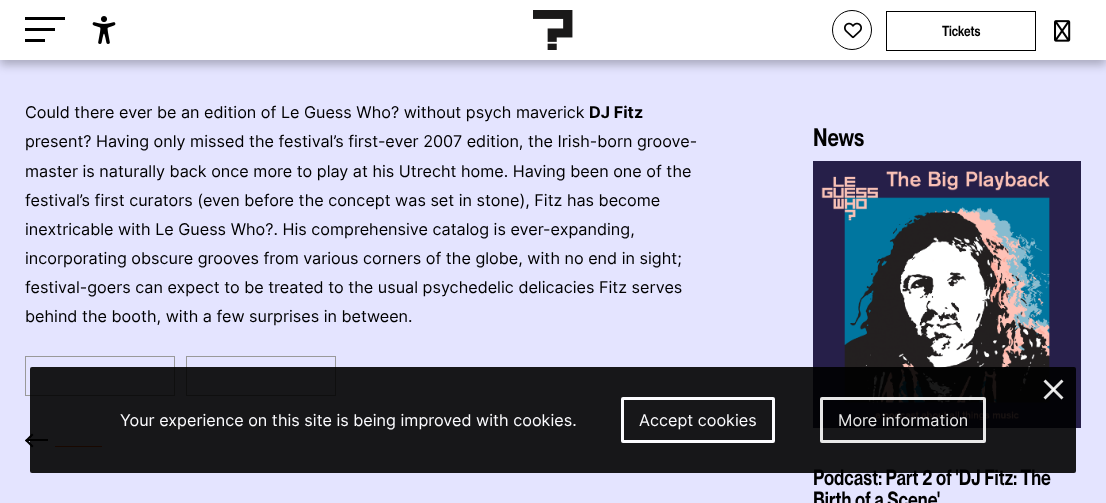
<svg xmlns="http://www.w3.org/2000/svg" xmlns:xlink="http://www.w3.org/1999/xlink" width="1106" height="503" viewBox="0 0 1106 503">
<style>
.cls-1{font:600 14.5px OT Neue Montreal;fill:#000000}
.cls-2{font:16.2px Inter;fill:#000000}
.cls-3{font:bold 16.2px Inter;fill:#000000}
.cls-4{font:600 25px OT Neue Montreal;fill:#000000}
.cls-5{font:600 21.6px OT Neue Montreal;fill:#000000}
.cls-6{font:16.2px Inter;fill:#fcfcff}
.cls-7{font:16.2px Inter;fill:#e6e6e6}
</style>
<rect width="100%" height="100%" fill="#e4e4ff"/>
<rect fill="#000000" fill-opacity="0.25" filter="blur(5px)" x="0" y="5" width="1106" height="60"/>
<rect fill="#ffffff" x="0" y="0" width="1106" height="60"/>
<rect fill="#000000" x="25" y="17" width="40" height="3"/>
<rect fill="#000000" x="25" y="28" width="30" height="3"/>
<rect fill="#000000" x="25" y="39" width="20" height="3"/>
<image xlink:href="image0.png" x="92" y="16" width="24" height="28"/>
<image xlink:href="image1.png" x="533" y="10" width="40" height="40"/>
<circle fill="none" stroke="#000000" cx="852" cy="30" r="19.5"/>
<image xlink:href="image2.png" x="844" y="22" width="18" height="17"/>
<rect fill="none" stroke="#000000" x="886.5" y="11.5" width="149" height="39"/>
<image xlink:href="image3.png" x="1054" y="20" width="17" height="22"/>
<rect fill="none" stroke="#999999" x="25.5" y="356.5" width="149" height="39"/>
<rect fill="none" stroke="#999999" x="186.5" y="356.5" width="149" height="39"/>
<rect fill="#000000" x="28" y="439" width="20" height="2"/>
<path fill="#000000" d="M32 447.5L25 440.5L26.5 439L33.5 446Z"/>
<path fill="#000000" d="M26.5 442L25 440.5L32 433.5L33.5 435Z"/>
<rect fill="#ff5500" x="55" y="446" width="47" height="1"/>
<image xlink:href="image4.png" x="813" y="161" width="268" height="267"/>
<text class="cls-1" x="942" y="36">Tickets</text>
<text class="cls-2" x="25" y="118">Could there ever be an edition of Le Guess Who? without psych maverick</text>
<text class="cls-3" x="589" y="118">DJ Fitz</text>
<text class="cls-2"><tspan x="25" y="147">present? Having only missed the festival’s first-ever 2007 edition, the Irish-born groove-</tspan><tspan x="25" y="177">master is naturally back once more to play at his Utrecht home. Having been one of the</tspan><tspan x="25" y="206">festival’s first curators (even before the concept was set in stone), Fitz has become</tspan><tspan x="25" y="235">inextricable with Le Guess Who?. His comprehensive catalog is ever-expanding,</tspan><tspan x="25" y="264">incorporating obscure grooves from various corners of the globe, with no end in sight;</tspan><tspan x="25" y="293">festival-goers can expect to be treated to the usual psychedelic delicacies Fitz serves</tspan><tspan x="25" y="322">behind the booth, with a few surprises in between.</tspan></text>
<text class="cls-4" x="813" y="146">News</text>
<text class="cls-5"><tspan x="813" y="485">Podcast: Part 2 of 'DJ Fitz: The</tspan><tspan x="813" y="507">Birth of a Scene'</tspan></text>
<rect fill="#000000" fill-opacity="0.9" x="30" y="367" width="1046" height="106" rx="2"/>
<path fill="#ffffff" fill-opacity="0.9" d="M1061.5 379.5L1063.5 381.5L1045.5 399.5L1043.5 397.5Z"/>
<path fill="#ffffff" fill-opacity="0.9" d="M1043.5 381.5L1045.5 379.5L1063.5 397.5L1061.5 399.5Z"/>
<text class="cls-6" x="120" y="426">Your experience on this site is being improved with cookies.</text>
<rect fill="none" stroke="#fcfcff" stroke-width="3" x="622.5" y="398.5" width="151" height="43" rx="0.5"/>
<text class="cls-6" x="639" y="426">Accept cookies</text>
<rect fill="none" stroke="#ffffff" stroke-opacity="0.9" stroke-width="3" x="821.5" y="398.5" width="163" height="43" rx="0.5"/>
<text class="cls-7" x="838" y="426">More information</text>
</svg>
